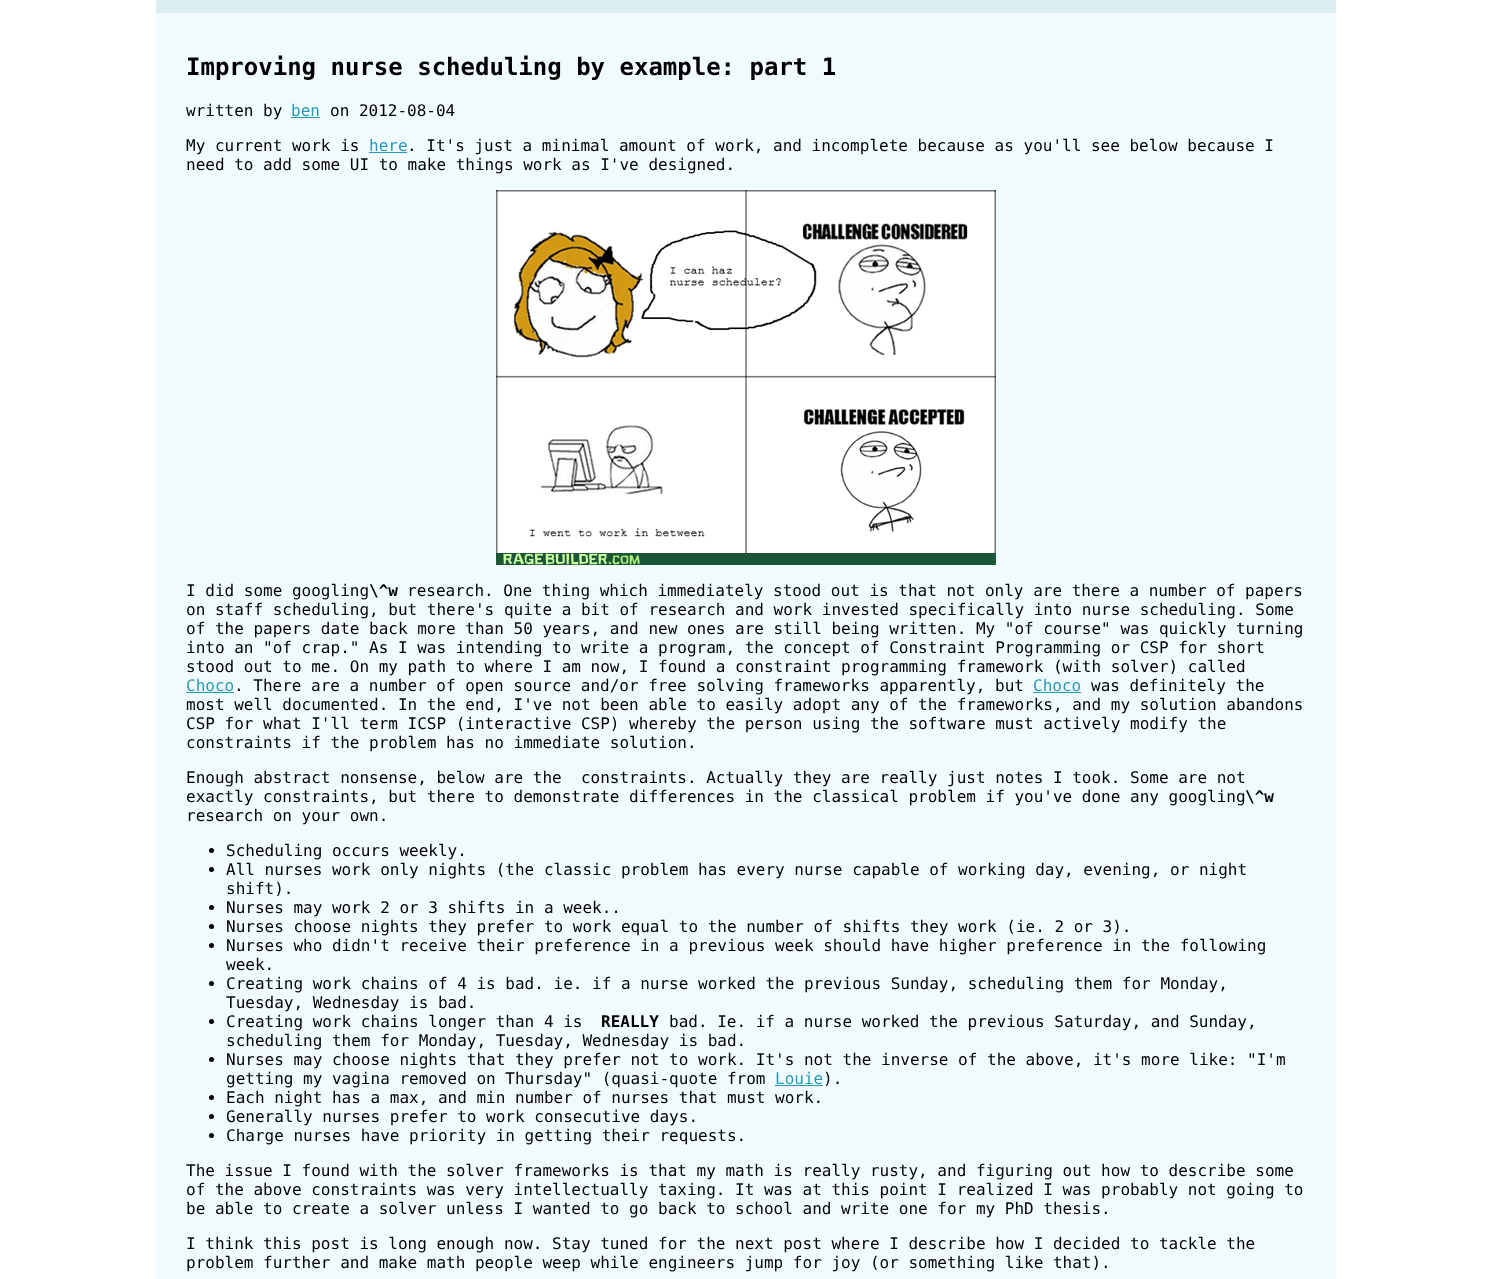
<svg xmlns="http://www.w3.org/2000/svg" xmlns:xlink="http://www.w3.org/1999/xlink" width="1491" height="1279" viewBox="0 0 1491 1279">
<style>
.cls-1{font:bold 24px DejaVu Sans Mono;fill:#000000}
.cls-2{font:16px DejaVu Sans Mono;fill:#000000}
.cls-3{font:16px DejaVu Sans Mono;fill:#2a99b6}
.cls-4{font:bold 16px DejaVu Sans Mono;fill:#000000}
</style>
<rect width="100%" height="100%" fill="#ffffff"/>
<rect fill="#daeef3" x="156" y="0" width="1180" height="13"/>
<rect fill="#f1fbfe" x="156" y="13" width="1180" height="1266"/>
<rect fill="#2a99b6" x="291" y="117" width="29" height="1"/>
<rect fill="#2a99b6" x="369" y="152" width="38" height="1"/>
<image xlink:href="image0.png" x="496" y="190" width="500" height="375"/>
<rect fill="#2a99b6" x="186" y="692" width="48" height="1"/>
<rect fill="#2a99b6" x="1033" y="692" width="48" height="1"/>
<circle fill="#000000" cx="211.5" cy="850.5" r="2.5"/>
<circle fill="#000000" cx="211.5" cy="869.5" r="2.5"/>
<circle fill="#000000" cx="211.5" cy="907.5" r="2.5"/>
<circle fill="#000000" cx="211.5" cy="926.5" r="2.5"/>
<circle fill="#000000" cx="211.5" cy="945.5" r="2.5"/>
<circle fill="#000000" cx="211.5" cy="983.5" r="2.5"/>
<circle fill="#000000" cx="211.5" cy="1021.5" r="2.5"/>
<circle fill="#000000" cx="211.5" cy="1059.5" r="2.5"/>
<rect fill="#2a99b6" x="775" y="1085" width="48" height="1"/>
<circle fill="#000000" cx="211.5" cy="1097.5" r="2.5"/>
<circle fill="#000000" cx="211.5" cy="1116.5" r="2.5"/>
<circle fill="#000000" cx="211.5" cy="1135.5" r="2.5"/>
<text class="cls-1" x="186" y="75">Improving nurse scheduling by example: part 1</text>
<text class="cls-2" x="186" y="116">written by</text>
<text class="cls-3" x="291" y="116">ben</text>
<text class="cls-2" x="330" y="116">on 2012-08-04</text>
<text class="cls-2" x="186" y="151">My current work is</text>
<text class="cls-3" x="369" y="151">here</text>
<text class="cls-2" x="407" y="151">. It's just a minimal amount of work, and incomplete because as you'll see below because I</text>
<text class="cls-2" x="186" y="170">need to add some UI to make things work as I've designed.</text>
<text class="cls-2" x="186" y="596">I did some googling</text>
<text class="cls-4" x="369" y="596">\^w</text>
<text class="cls-2" x="407" y="596">research. One thing which immediately stood out is that not only are there a number of papers</text>
<text class="cls-2"><tspan x="186" y="615">on staff scheduling, but there's quite a bit of research and work invested specifically into nurse scheduling. Some</tspan><tspan x="186" y="634">of the papers date back more than 50 years, and new ones are still being written. My "of course" was quickly turning</tspan><tspan x="186" y="653">into an "of crap." As I was intending to write a program, the concept of Constraint Programming or CSP for short</tspan><tspan x="186" y="672">stood out to me. On my path to where I am now, I found a constraint programming framework (with solver) called</tspan></text>
<text class="cls-3" x="186" y="691">Choco</text>
<text class="cls-2" x="234" y="691">. There are a number of open source and/or free solving frameworks apparently, but</text>
<text class="cls-3" x="1033" y="691">Choco</text>
<text class="cls-2" x="1091" y="691">was definitely the</text>
<text class="cls-2"><tspan x="186" y="710">most well documented. In the end, I've not been able to easily adopt any of the frameworks, and my solution abandons</tspan><tspan x="186" y="729">CSP for what I'll term ICSP (interactive CSP) whereby the person using the software must actively modify the</tspan><tspan x="186" y="748">constraints if the problem has no immediate solution.</tspan></text>
<text class="cls-2" xml:space="preserve"><tspan x="186" y="783">Enough abstract nonsense, below are the  constraints. Actually they are really just notes I took. Some are not</tspan><tspan x="186" y="802">exactly constraints, but there to demonstrate differences in the classical problem if you've done any googling</tspan></text>
<text class="cls-4" x="1245" y="802">\^w</text>
<text class="cls-2" x="186" y="821">research on your own.</text>
<text class="cls-2"><tspan x="226" y="856">Scheduling occurs weekly.</tspan><tspan x="226" y="875">All nurses work only nights (the classic problem has every nurse capable of working day, evening, or night</tspan><tspan x="226" y="894">shift).</tspan><tspan x="226" y="913">Nurses may work 2 or 3 shifts in a week..</tspan><tspan x="226" y="932">Nurses choose nights they prefer to work equal to the number of shifts they work (ie. 2 or 3).</tspan><tspan x="226" y="951">Nurses who didn't receive their preference in a previous week should have higher preference in the following</tspan><tspan x="226" y="970">week.</tspan><tspan x="226" y="989">Creating work chains of 4 is bad. ie. if a nurse worked the previous Sunday, scheduling them for Monday,</tspan><tspan x="226" y="1008">Tuesday, Wednesday is bad.</tspan><tspan x="226" y="1027">Creating work chains longer than 4 is</tspan></text>
<text class="cls-4" x="601" y="1027">REALLY</text>
<text class="cls-2" x="669" y="1027">bad. Ie. if a nurse worked the previous Saturday, and Sunday,</text>
<text class="cls-2"><tspan x="226" y="1046">scheduling them for Monday, Tuesday, Wednesday is bad.</tspan><tspan x="226" y="1065">Nurses may choose nights that they prefer not to work. It's not the inverse of the above, it's more like: "I'm</tspan><tspan x="226" y="1084">getting my vagina removed on Thursday" (quasi-quote from</tspan></text>
<text class="cls-3" x="775" y="1084">Louie</text>
<text class="cls-2" x="823" y="1084">).</text>
<text class="cls-2"><tspan x="226" y="1103">Each night has a max, and min number of nurses that must work.</tspan><tspan x="226" y="1122">Generally nurses prefer to work consecutive days.</tspan><tspan x="226" y="1141">Charge nurses have priority in getting their requests.</tspan></text>
<text class="cls-2"><tspan x="186" y="1176">The issue I found with the solver frameworks is that my math is really rusty, and figuring out how to describe some</tspan><tspan x="186" y="1195">of the above constraints was very intellectually taxing. It was at this point I realized I was probably not going to</tspan><tspan x="186" y="1214">be able to create a solver unless I wanted to go back to school and write one for my PhD thesis.</tspan></text>
<text class="cls-2"><tspan x="186" y="1249">I think this post is long enough now. Stay tuned for the next post where I describe how I decided to tackle the</tspan><tspan x="186" y="1268">problem further and make math people weep while engineers jump for joy (or something like that).</tspan></text>
</svg>
